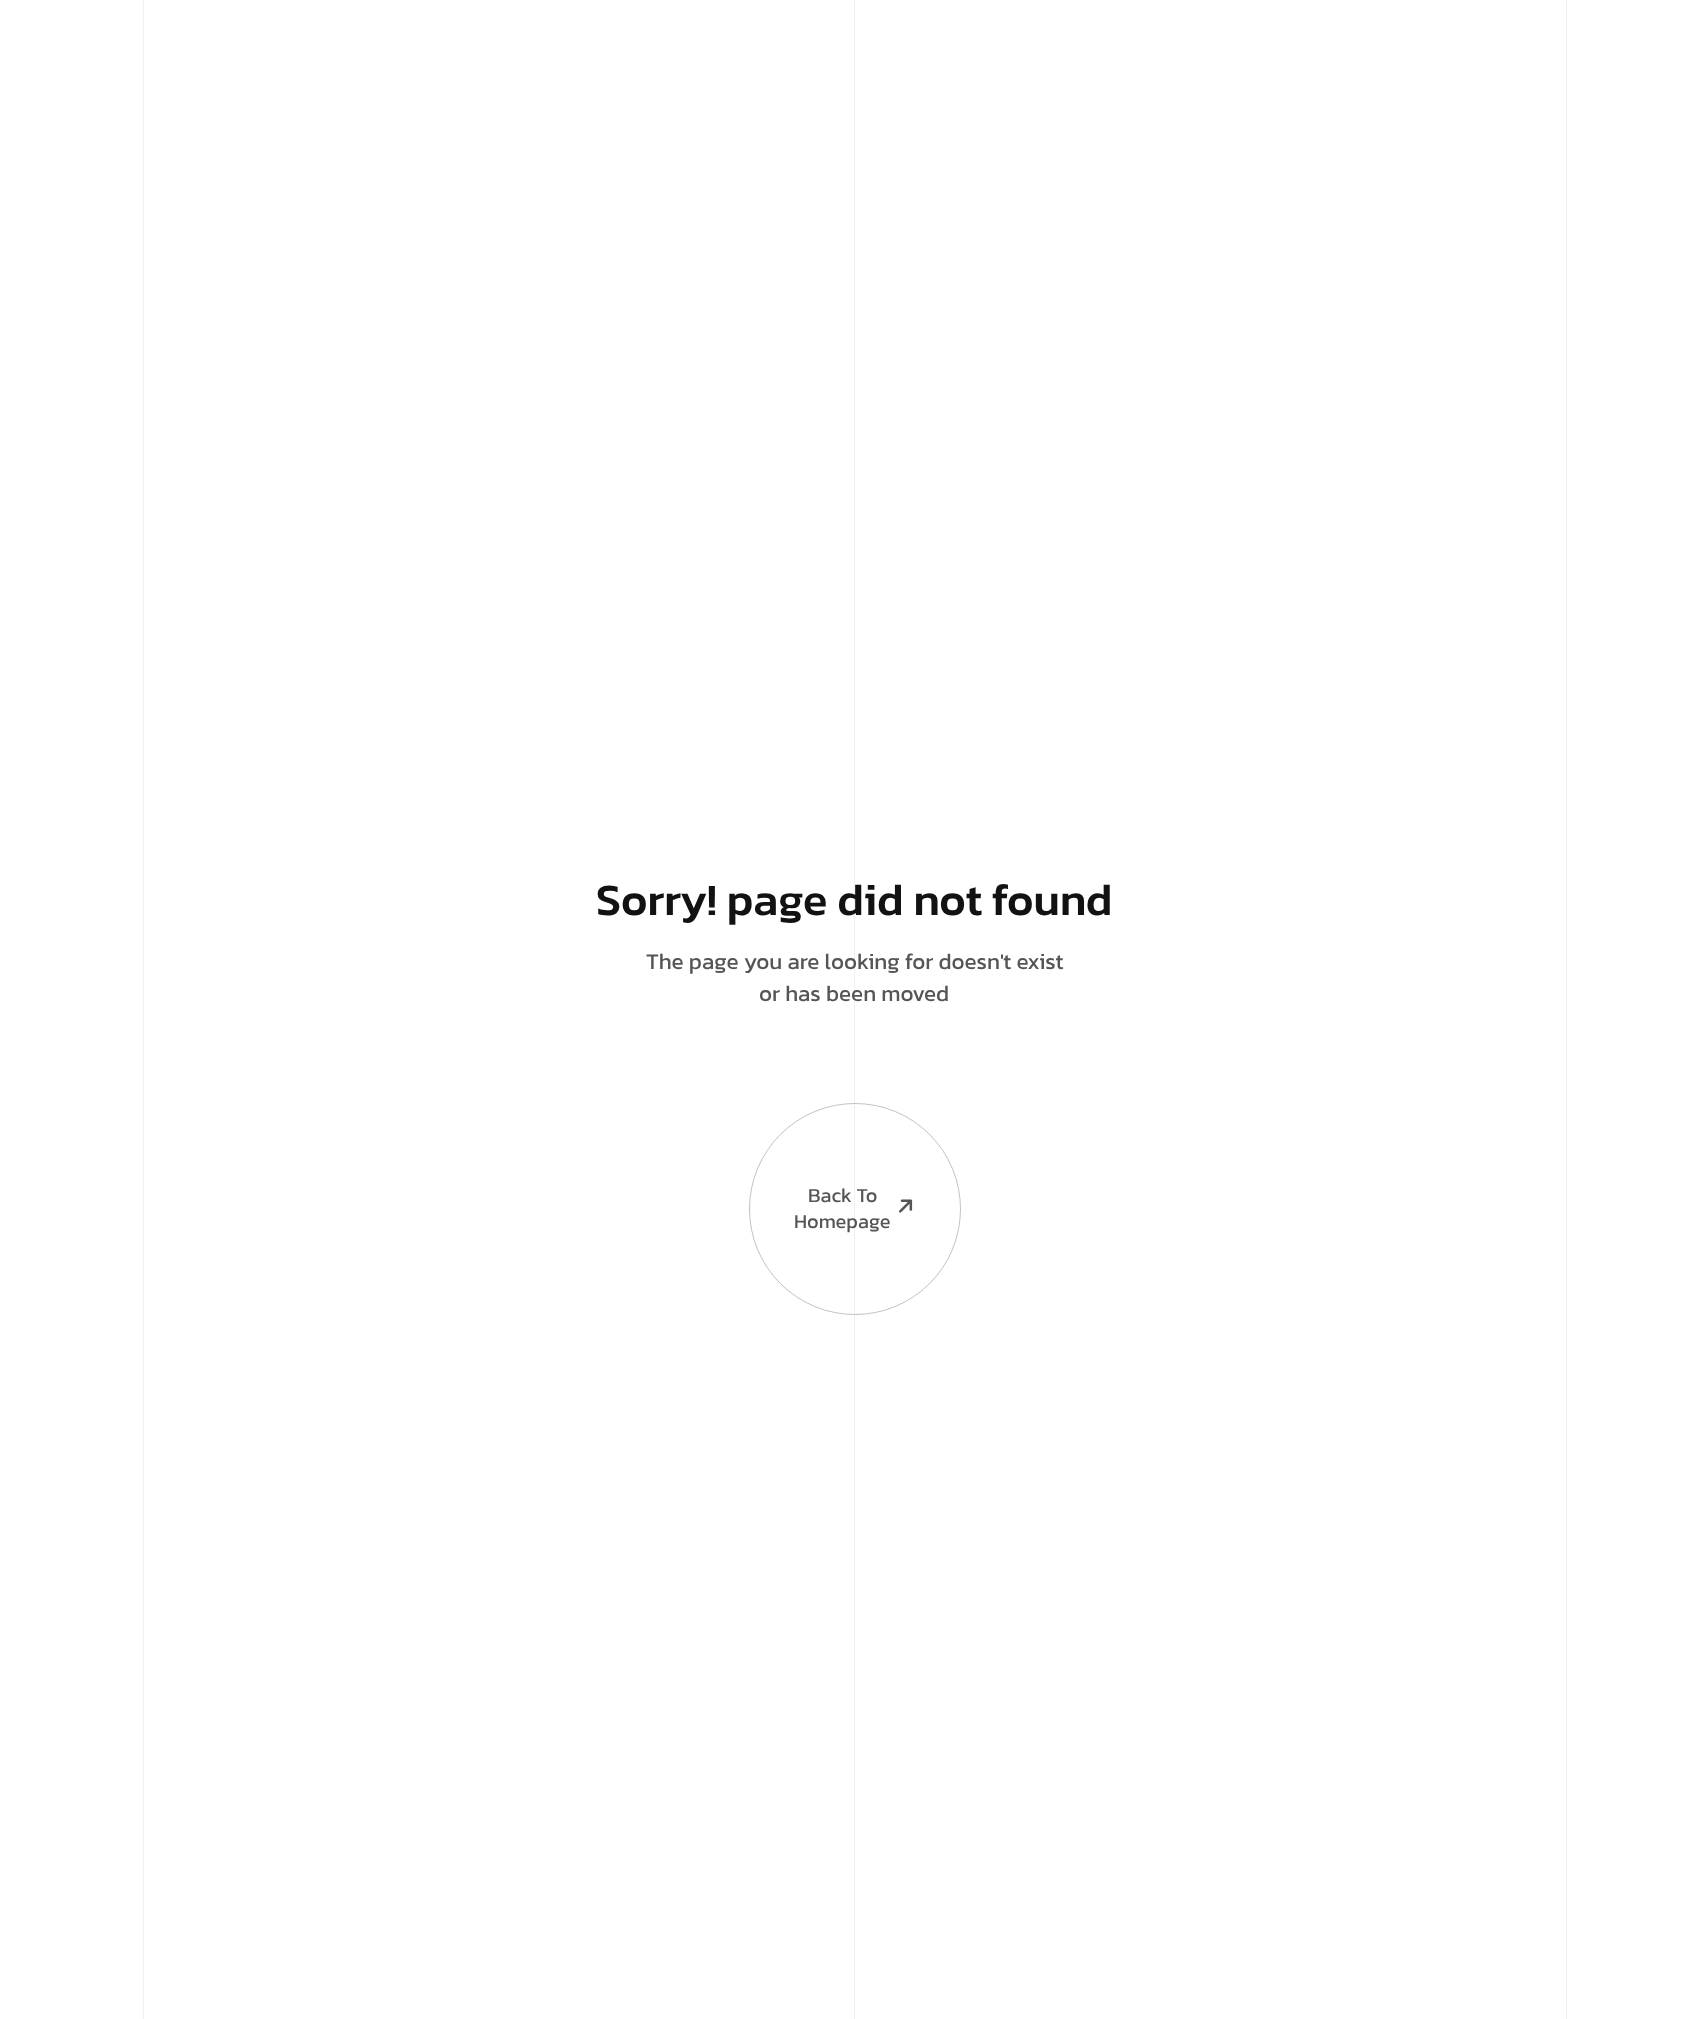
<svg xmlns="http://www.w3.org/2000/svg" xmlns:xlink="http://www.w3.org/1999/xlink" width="1708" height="2019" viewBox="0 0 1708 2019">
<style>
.cls-1{font:500 45px Kanit;fill:#121212}
.cls-2{font:22.5px Kanit;fill:#555555}
.cls-3{font:20px Kanit;fill:#555555}
</style>
<rect width="100%" height="100%" fill="#ffffff"/>
<rect fill="#f0f0f0" x="143" y="0" width="1" height="2019"/>
<rect fill="#f0f0f0" x="854" y="0" width="1" height="2019"/>
<rect fill="#f0f0f0" x="1566" y="0" width="1" height="2019"/>
<circle fill="none" stroke="#c2c2c2" cx="855" cy="1209" r="105.5"/>
<image xlink:href="image0.png" x="899" y="1199" width="14" height="14"/>
<text class="cls-1" x="596" y="915">Sorry! page did not found</text>
<text class="cls-2" x="646" y="969">The page you are looking for doesn't exist</text>
<text class="cls-2" x="759" y="1001">or has been moved</text>
<text class="cls-3" x="808" y="1202">Back To</text>
<text class="cls-3" x="794" y="1228">Homepage</text>
</svg>
